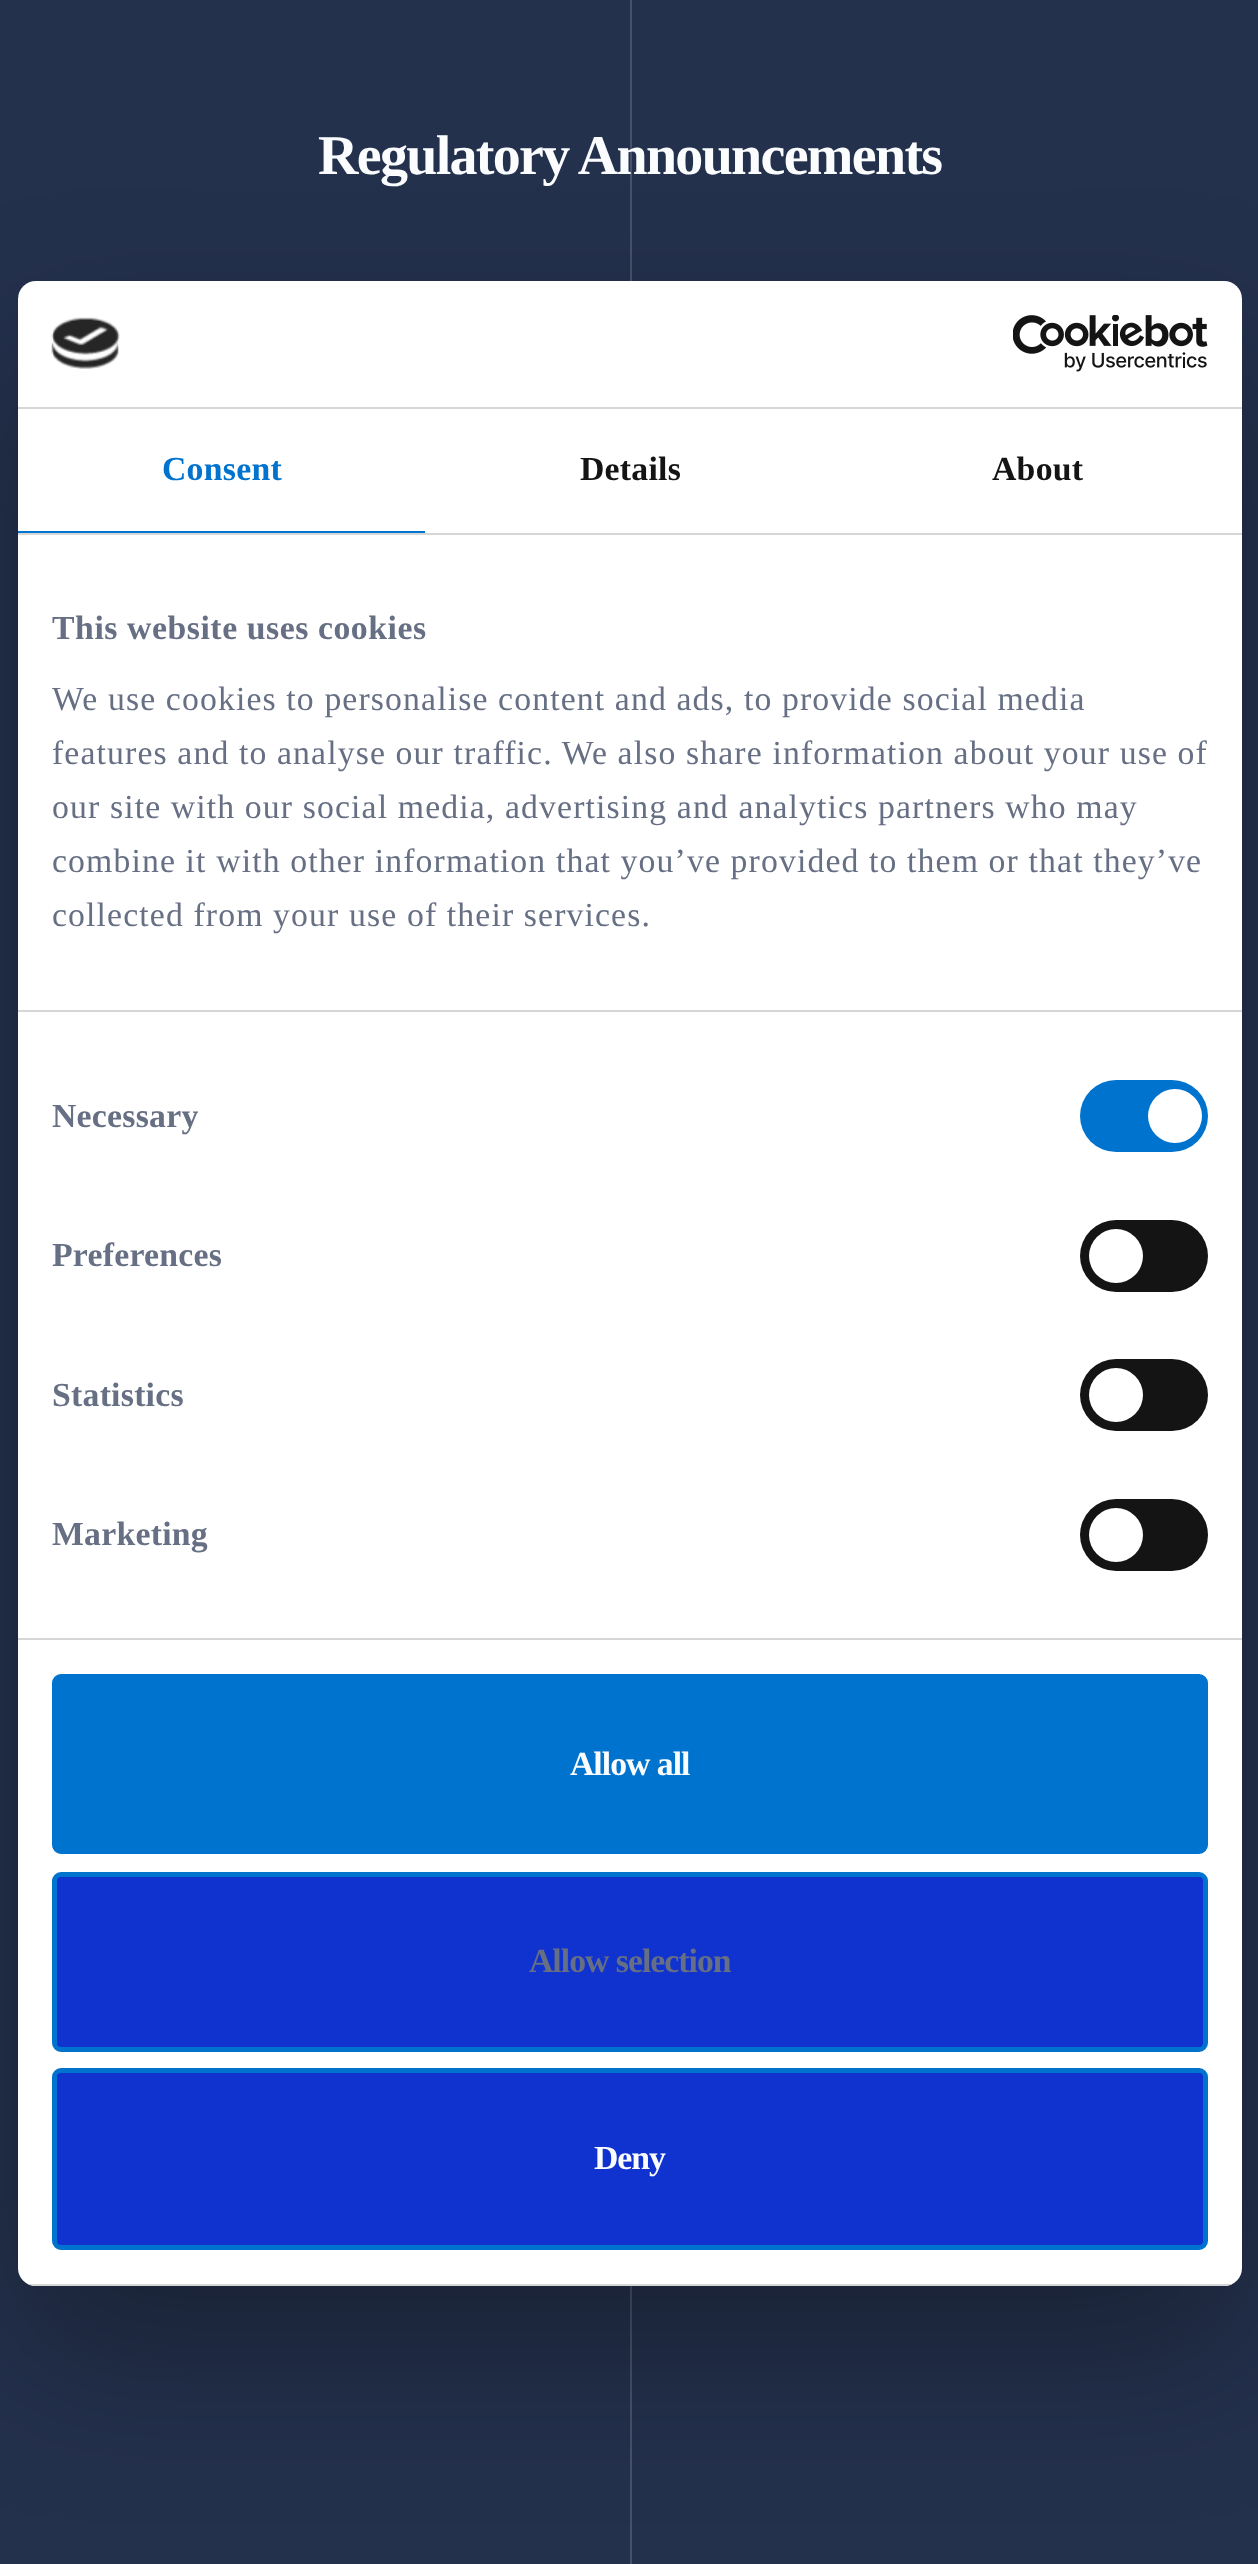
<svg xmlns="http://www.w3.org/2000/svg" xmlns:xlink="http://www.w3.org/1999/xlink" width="1258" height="2564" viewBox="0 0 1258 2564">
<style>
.cls-1{font:bold 56px Liberation Serif;letter-spacing:-1.7px;fill:#fafcfe}
.cls-2{font:bold 33.75px Liberation Serif;letter-spacing:0.25px;fill:#0073cf}
.cls-3{font:bold 33.75px Liberation Serif;letter-spacing:0.25px;fill:#141414}
.cls-4{font:bold 33.75px Liberation Serif;letter-spacing:0.55px;fill:#666f83}
.cls-5{font:33.75px Liberation Serif;letter-spacing:1.12px;fill:#666f83}
.cls-6{font:bold 33.75px Liberation Serif;letter-spacing:0.25px;fill:#666f83}
.cls-7{font:bold 33.75px Liberation Serif;letter-spacing:-1px;fill:#fafcfe}
.cls-8{font:bold 33.75px Liberation Serif;letter-spacing:-1px;fill:#666f83}
</style>
<defs>
<clipPath id="clip1"><rect x="18" y="281" width="1224" height="2005" rx="18"/></clipPath>
</defs>
<rect width="100%" height="100%" fill="#24314d"/>
<rect fill="#47526a" x="630" y="0" width="2" height="2564"/>
<rect fill="#000000" fill-opacity="0.3" filter="blur(76.5px)" x="18" y="353" width="1224" height="2005" rx="18"/>
<rect fill="#ffffff" x="18" y="281" width="1224" height="2005" rx="18"/>
<rect fill="#d6d6d6" x="18" y="407" width="1224" height="2"/>
<image xlink:href="image0.png" x="51" y="317" width="69" height="52"/>
<image xlink:href="image1.png" x="1013" y="315" width="195" height="57"/>
<rect fill="#d6d6d6" x="18" y="533" width="1224" height="2"/>
<rect fill="#0073cf" x="18" y="531" width="407" height="2"/>
<rect fill="#d6d6d6" x="18" y="1010" width="1224" height="2"/>
<rect fill="#d6d6d6" x="18" y="1638" width="1224" height="2"/>
<rect fill="#0073cf" x="1080" y="1080" width="128" height="72" rx="36"/>
<circle fill="#ffffff" cx="1175" cy="1116" r="27"/>
<rect fill="#141414" x="1080" y="1220" width="128" height="72" rx="36"/>
<circle fill="#ffffff" cx="1116" cy="1256" r="27"/>
<rect fill="#141414" x="1080" y="1359" width="128" height="72" rx="36"/>
<circle fill="#ffffff" cx="1116" cy="1395" r="27"/>
<rect fill="#141414" x="1080" y="1499" width="128" height="72" rx="36"/>
<circle fill="#ffffff" cx="1116" cy="1535" r="27"/>
<g clip-path="url(#clip1)">
<rect fill="#d6d6d6" x="28" y="2284" width="1204" height="2"/>
</g>
<rect fill="#0073cf" stroke="#0073cf" stroke-width="5" x="54.5" y="1676.5" width="1151" height="175" rx="6.5"/>
<rect fill="#1032cf" stroke="#0073cf" stroke-width="5" x="54.5" y="1874.5" width="1151" height="175" rx="6.5"/>
<rect fill="#1032cf" stroke="#0073cf" stroke-width="5" x="54.5" y="2070.5" width="1151" height="177" rx="6.5"/>
<text class="cls-1" x="318" y="174">Regulatory Announcements</text>
<text class="cls-2" x="162" y="480">Consent</text>
<text class="cls-3" x="580" y="480">Details</text>
<text class="cls-3" x="992" y="480">About</text>
<text class="cls-4" x="52" y="639">This website uses cookies</text>
<text class="cls-5"><tspan x="52" y="710">We use cookies to personalise content and ads, to provide social media</tspan><tspan x="52" y="764">features and to analyse our traffic. We also share information about your use of</tspan><tspan x="52" y="818">our site with our social media, advertising and analytics partners who may</tspan><tspan x="52" y="872">combine it with other information that you’ve provided to them or that they’ve</tspan><tspan x="52" y="926">collected from your use of their services.</tspan></text>
<text class="cls-6" x="52" y="1127">Necessary</text>
<text class="cls-6" x="52" y="1266">Preferences</text>
<text class="cls-6" x="52" y="1406">Statistics</text>
<text class="cls-6" x="52" y="1545">Marketing</text>
<text class="cls-7" x="570" y="1775">Allow all</text>
<text class="cls-8" x="529" y="1972">Allow selection</text>
<text class="cls-7" x="594" y="2169">Deny</text>
</svg>
